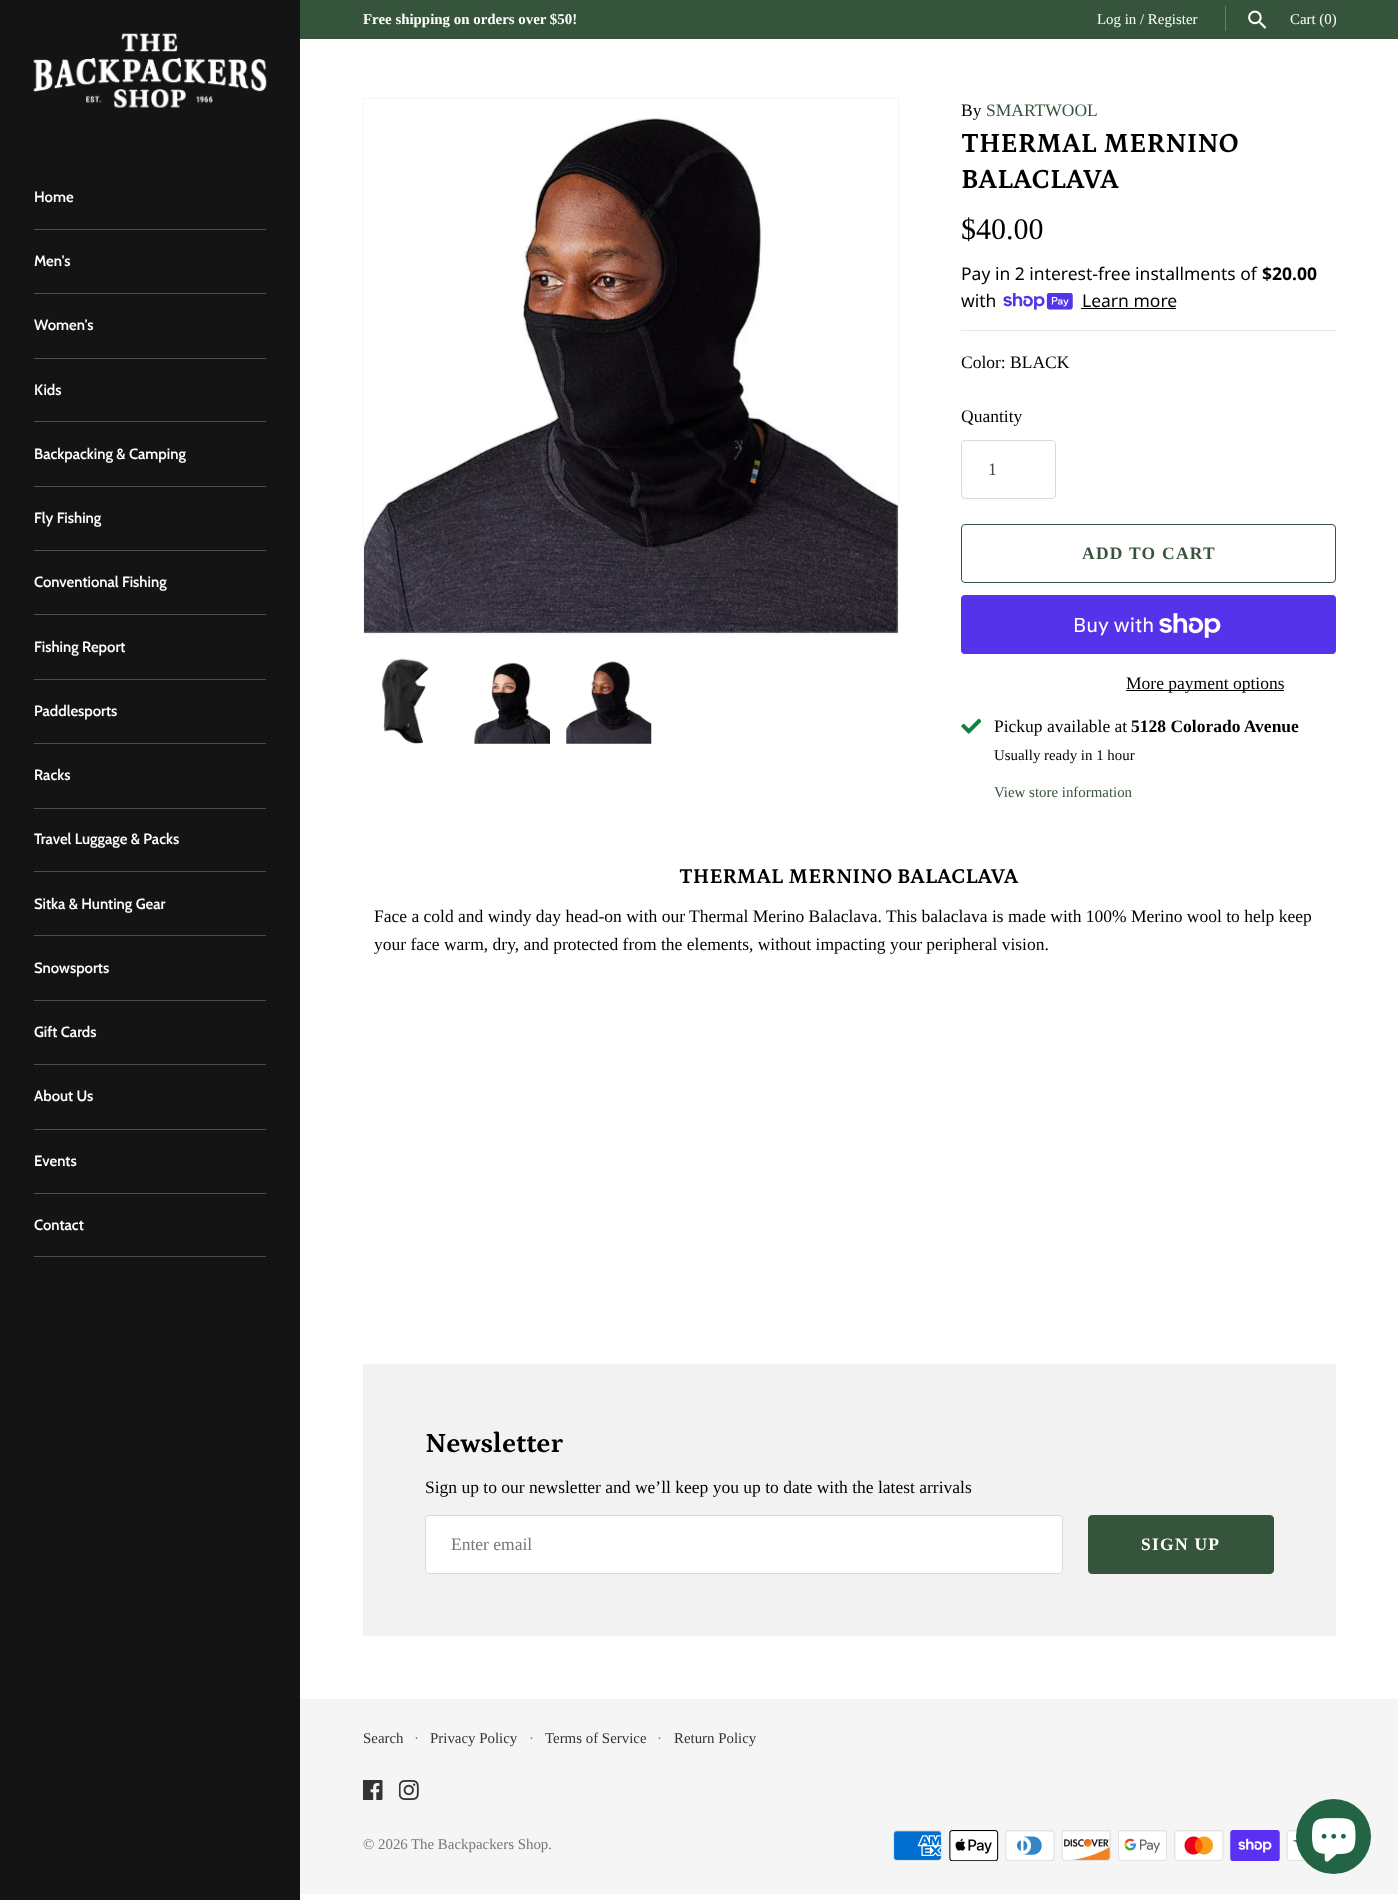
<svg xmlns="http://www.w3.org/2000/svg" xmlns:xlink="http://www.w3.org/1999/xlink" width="1398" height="1900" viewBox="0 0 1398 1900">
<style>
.cls-1{font:bold 14.9px Liberation Serif;fill:#ffffff}
.cls-2{font:14.9px Liberation Serif;fill:#ffffff}
.cls-3{font:600 14.9px Cabin;fill:#ffffff}
.cls-4{font:17.5px Liberation Serif;fill:#000000}
.cls-5{font:17.5px Liberation Serif;fill:#36543b}
.cls-6{font:bold 28px Petrona;fill:#000000}
.cls-7{font:30px Liberation Serif;fill:#000000}
.cls-8{font:17.5px Noto Sans;fill:#000000}
.cls-9{font:bold 17.5px Noto Sans;fill:#000000}
.cls-10{font:17.5px Liberation Serif;fill:#444444}
.cls-11{font:bold 17.5px Liberation Serif;letter-spacing:1.25px;fill:#36543b}
.cls-12{font:20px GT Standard;fill:#ffffff}
.cls-13{font:bold 17.5px Liberation Serif;fill:#000000}
.cls-14{font:14.9px Liberation Serif;fill:#000000}
.cls-15{font:14.9px Liberation Serif;fill:#36543b}
.cls-16{font:bold 21.5px Petrona;fill:#000000}
.cls-17{font:17.5px Liberation Serif;fill:#777777}
.cls-18{font:bold 17.5px Liberation Serif;letter-spacing:1.25px;fill:#ffffff}
.cls-19{font:14.9px Liberation Serif;fill:#333333}
.cls-20{font:14.9px Liberation Serif;fill:#777777}
</style>
<rect width="100%" height="100%" fill="#ffffff"/>
<rect fill="#36543b" x="300" y="0" width="1098" height="39"/>
<rect fill="#687f6c" x="1225" y="6" width="1" height="25"/>
<image xlink:href="image0.png" x="1248" y="10" width="19" height="19"/>
<rect fill="#141414" x="0" y="0" width="300" height="1900"/>
<image xlink:href="image1.png" x="33" y="33" width="234" height="75"/>
<rect fill="#4f4f4f" x="34" y="229" width="232" height="1"/>
<rect fill="#4f4f4f" x="34" y="293" width="232" height="1"/>
<rect fill="#4f4f4f" x="34" y="358" width="232" height="1"/>
<rect fill="#4f4f4f" x="34" y="421" width="232" height="1"/>
<rect fill="#4f4f4f" x="34" y="486" width="232" height="1"/>
<rect fill="#4f4f4f" x="34" y="550" width="232" height="1"/>
<rect fill="#4f4f4f" x="34" y="614" width="232" height="1"/>
<rect fill="#4f4f4f" x="34" y="679" width="232" height="1"/>
<rect fill="#4f4f4f" x="34" y="743" width="232" height="1"/>
<rect fill="#4f4f4f" x="34" y="808" width="232" height="1"/>
<rect fill="#4f4f4f" x="34" y="871" width="232" height="1"/>
<rect fill="#4f4f4f" x="34" y="935" width="232" height="1"/>
<rect fill="#4f4f4f" x="34" y="1000" width="232" height="1"/>
<rect fill="#4f4f4f" x="34" y="1064" width="232" height="1"/>
<rect fill="#4f4f4f" x="34" y="1129" width="232" height="1"/>
<rect fill="#4f4f4f" x="34" y="1193" width="232" height="1"/>
<rect fill="#4f4f4f" x="34" y="1256" width="232" height="1"/>
<rect fill="none" stroke="#f5f5f5" x="363.5" y="98.5" width="535" height="535"/>
<image xlink:href="image2.png" x="364" y="118" width="534" height="515"/>
<image xlink:href="image3.png" x="381" y="658" width="48" height="86"/>
<image xlink:href="image4.png" x="473" y="662" width="77" height="82"/>
<image xlink:href="image5.png" x="566" y="661" width="86" height="83"/>
<image xlink:href="image6.png" x="1003" y="293" width="70" height="17"/>
<rect fill="#000000" x="1081" y="308" width="95" height="1"/>
<rect fill="#e7e7e7" x="961" y="330" width="375" height="1"/>
<rect fill="none" stroke="#d9d9d9" x="961.5" y="440.5" width="94" height="58" rx="3.5"/>
<rect fill="none" stroke="#36543b" x="961.5" y="524.5" width="374" height="58" rx="3.5"/>
<rect fill="#5433eb" x="961" y="595" width="375" height="59" rx="4"/>
<image xlink:href="image7.png" x="1159" y="613" width="62" height="25"/>
<rect fill="#000000" x="1126" y="690" width="158" height="1"/>
<image xlink:href="image8.png" x="961" y="718" width="20" height="16"/>
<rect fill="#f2f2f2" x="363" y="1364" width="973" height="272"/>
<rect fill="#ffffff" x="425" y="1515" width="638" height="59" rx="4"/>
<rect fill="none" stroke="#000000" stroke-opacity="0.15" x="425.5" y="1515.5" width="637" height="58" rx="3.5"/>
<rect fill="#36543b" stroke="#36543b" x="1088.5" y="1515.5" width="185" height="58" rx="3.5"/>
<rect fill="#f5f5f5" x="300" y="1699" width="1098" height="195"/>
<image xlink:href="image9.png" x="363" y="1780" width="20" height="20"/>
<image xlink:href="image10.png" x="399" y="1780" width="20" height="20"/>
<image xlink:href="image11.png" x="893" y="1830" width="49" height="31"/>
<image xlink:href="image12.png" x="949" y="1830" width="50" height="31"/>
<image xlink:href="image13.png" x="1005" y="1830" width="50" height="31"/>
<image xlink:href="image14.png" x="1061" y="1830" width="50" height="31"/>
<image xlink:href="image15.png" x="1118" y="1830" width="49" height="31"/>
<image xlink:href="image16.png" x="1174" y="1830" width="50" height="31"/>
<image xlink:href="image17.png" x="1230" y="1830" width="50" height="31"/>
<image xlink:href="image18.png" x="1286" y="1830" width="20" height="31"/>
<circle fill="#226443" cx="1333.5" cy="1836.5" r="37.5"/>
<image xlink:href="image19.png" x="1312" y="1818" width="44" height="44"/>
<text class="cls-1" x="363" y="24">Free shipping on orders over $50!</text>
<text class="cls-2" x="1097" y="24">Log in / Register</text>
<text class="cls-2" x="1290" y="24">Cart (0)</text>
<text class="cls-3" x="34" y="202">Home</text>
<text class="cls-3" x="34" y="266">Men's</text>
<text class="cls-3" x="34" y="330">Women's</text>
<text class="cls-3" x="34" y="395">Kids</text>
<text class="cls-3" x="34" y="459">Backpacking &amp; Camping</text>
<text class="cls-3" x="34" y="523">Fly Fishing</text>
<text class="cls-3" x="34" y="587">Conventional Fishing</text>
<text class="cls-3" x="34" y="652">Fishing Report</text>
<text class="cls-3" x="34" y="716">Paddlesports</text>
<text class="cls-3" x="34" y="780">Racks</text>
<text class="cls-3" x="34" y="844">Travel Luggage &amp; Packs</text>
<text class="cls-3" x="34" y="909">Sitka &amp; Hunting Gear</text>
<text class="cls-3" x="34" y="973">Snowsports</text>
<text class="cls-3" x="34" y="1037">Gift Cards</text>
<text class="cls-3" x="34" y="1101">About Us</text>
<text class="cls-3" x="34" y="1166">Events</text>
<text class="cls-3" x="34" y="1230">Contact</text>
<text class="cls-4" x="961" y="116">By</text>
<text class="cls-5" x="986" y="116">SMARTWOOL</text>
<text class="cls-6"><tspan x="961" y="152">THERMAL MERNINO</tspan><tspan x="961" y="188">BALACLAVA</tspan></text>
<text class="cls-7" x="961" y="239">$40.00</text>
<text class="cls-8" x="961" y="280">Pay in 2 interest-free installments of</text>
<text class="cls-9" x="1262" y="280">$20.00</text>
<text class="cls-8" x="961" y="307">with</text>
<text class="cls-8" x="1082" y="307">Learn more</text>
<text class="cls-4" x="961" y="368">Color: BLACK</text>
<text class="cls-4" x="961" y="422">Quantity</text>
<text class="cls-10" x="988" y="475">1</text>
<text class="cls-11" x="1082" y="559">ADD TO CART</text>
<text class="cls-12" x="1073" y="632">Buy with</text>
<text class="cls-4" x="1126" y="689">More payment options</text>
<text class="cls-4" x="994" y="732">Pickup available at</text>
<text class="cls-13" x="1131" y="732">5128 Colorado Avenue</text>
<text class="cls-14" x="994" y="760">Usually ready in 1 hour</text>
<text class="cls-15" x="994" y="797">View store information</text>
<text class="cls-16" x="679" y="883">THERMAL MERNINO BALACLAVA</text>
<text class="cls-4"><tspan x="374" y="922">Face a cold and windy day head-on with our Thermal Merino Balaclava. This balaclava is made with 100% Merino wool to help keep</tspan><tspan x="374" y="950">your face warm, dry, and protected from the elements, without impacting your peripheral vision.</tspan></text>
<text class="cls-6" x="425" y="1452">Newsletter</text>
<text class="cls-4" x="425" y="1493">Sign up to our newsletter and we’ll keep you up to date with the latest arrivals</text>
<text class="cls-17" x="451" y="1550">Enter email</text>
<text class="cls-18" x="1141" y="1550">SIGN UP</text>
<text class="cls-19" x="363" y="1743">Search</text>
<text class="cls-20" x="414" y="1743">·</text>
<text class="cls-19" x="430" y="1743">Privacy Policy</text>
<text class="cls-20" x="529" y="1743">·</text>
<text class="cls-19" x="545" y="1743">Terms of Service</text>
<text class="cls-20" x="657" y="1743">·</text>
<text class="cls-19" x="674" y="1743">Return Policy</text>
<text class="cls-20" x="363" y="1849">© 2026</text>
<text class="cls-20" x="411" y="1849">The Backpackers Shop.</text>
</svg>
